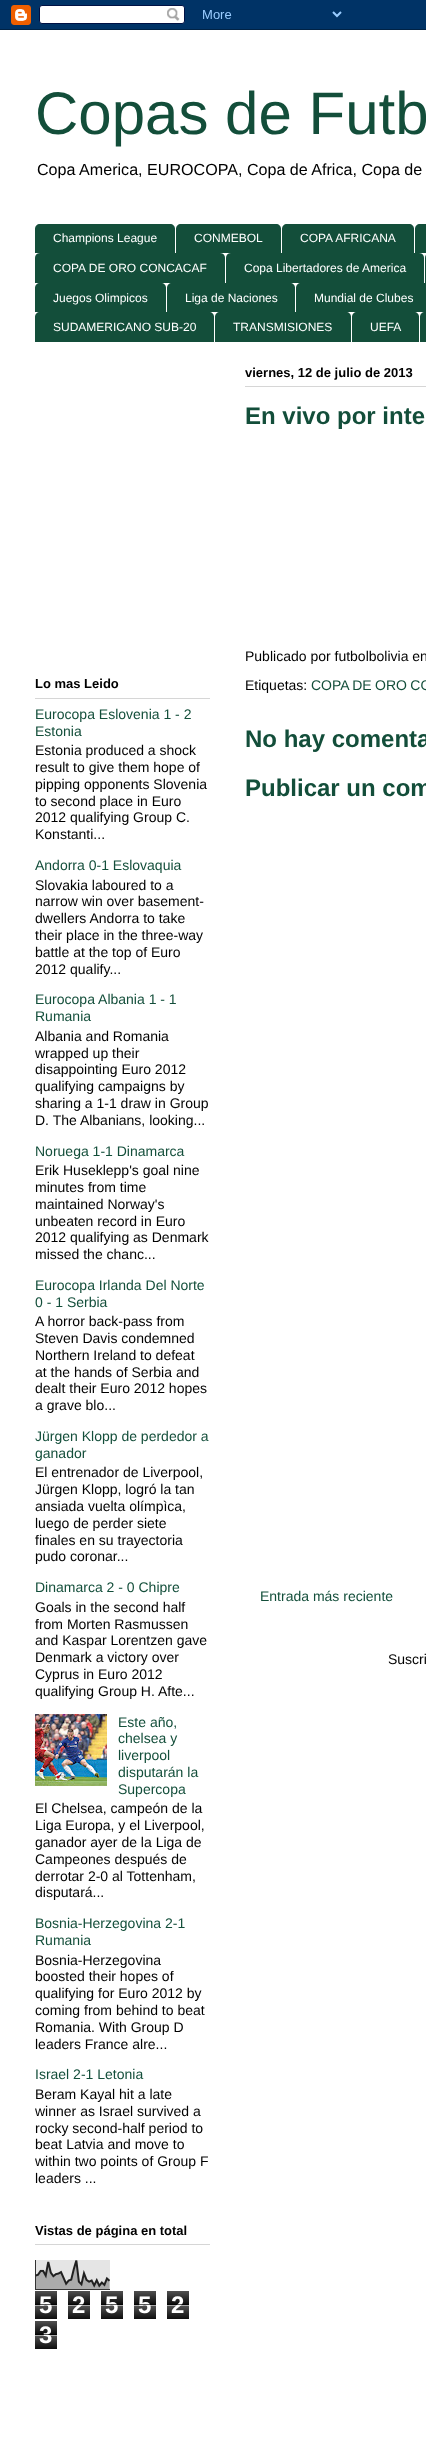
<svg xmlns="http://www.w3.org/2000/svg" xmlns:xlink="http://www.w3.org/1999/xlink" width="426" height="2453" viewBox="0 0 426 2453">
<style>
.cls-1{font:60px Liberation Sans;fill:#134e3a}
.cls-2{font:16.1px Liberation Sans;fill:#000000}
.cls-3{font:12px Liberation Sans;fill:#ffffff}
.cls-4{font:bold 13px Liberation Sans;fill:#000000}
.cls-5{font:14px Liberation Sans;fill:#134e3a}
.cls-6{font:14px Liberation Sans;fill:#000000}
.cls-7{font:bold 24px Liberation Sans;fill:#ffffff}
.cls-8{font:bold 24px Liberation Sans;fill:#134e3a}
</style>
<rect width="100%" height="100%" fill="#ffffff"/>
<image xlink:href="image0.png" x="0" y="0" width="426" height="30"/>
<path fill="#134e3a" d="M40 224H170C173 224 175 226 175 229V253H35V229C35 226 37 224 40 224Z"/>
<path fill="#134e3a" d="M181 224H276C279 224 281 226 281 229V253H176V229C176 226 178 224 181 224Z"/>
<path fill="#134e3a" d="M287 224H409C412 224 414 226 414 229V253H282V229C282 226 284 224 287 224Z"/>
<path fill="#134e3a" d="M420 224H426C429 224 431 226 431 229V253H415V229C415 226 417 224 420 224Z"/>
<path fill="#134e3a" d="M40 253H220C223 253 225 255 225 258V283H35V258C35 255 37 253 40 253Z"/>
<path fill="#134e3a" d="M231 253H419C422 253 424 255 424 258V283H226V258C226 255 228 253 231 253Z"/>
<path fill="#134e3a" d="M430 253H426C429 253 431 255 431 258V283H425V258C425 255 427 253 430 253Z"/>
<path fill="#134e3a" d="M40 283H161C164 283 166 285 166 288V312H35V288C35 285 37 283 40 283Z"/>
<path fill="#134e3a" d="M172 283H290C293 283 295 285 295 288V312H167V288C167 285 169 283 172 283Z"/>
<path fill="#134e3a" d="M301 283H426C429 283 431 285 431 288V312H296V288C296 285 298 283 301 283Z"/>
<path fill="#134e3a" d="M40 312H209C212 312 214 314 214 317V342H35V317C35 314 37 312 40 312Z"/>
<path fill="#134e3a" d="M220 312H346C349 312 351 314 351 317V342H215V317C215 314 217 312 220 312Z"/>
<path fill="#134e3a" d="M357 312H414C417 312 419 314 419 317V342H352V317C352 314 354 312 357 312Z"/>
<path fill="#134e3a" d="M425 312H426C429 312 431 314 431 317V342H420V317C420 314 422 312 425 312Z"/>
<rect fill="#d6d6d6" x="35" y="698" width="175" height="1"/>
<image xlink:href="image1.png" x="35" y="1714" width="72" height="72"/>
<rect fill="#d6d6d6" x="35" y="2244" width="175" height="1"/>
<image xlink:href="image2.png" x="35" y="2260" width="75" height="30"/>
<image xlink:href="image3.png" x="35" y="2291" width="22" height="28"/>
<image xlink:href="image3.png" x="68" y="2291" width="22" height="28"/>
<image xlink:href="image3.png" x="101" y="2291" width="22" height="28"/>
<image xlink:href="image3.png" x="134" y="2291" width="22" height="28"/>
<image xlink:href="image3.png" x="167" y="2291" width="22" height="28"/>
<image xlink:href="image3.png" x="35" y="2321" width="22" height="28"/>
<rect fill="#d6d6d6" x="245" y="386" width="181" height="1"/>
<text class="cls-1" x="35" y="134">Copas de Futb</text>
<text class="cls-2" x="37" y="175">Copa America, EUROCOPA, Copa de Africa, Copa de</text>
<text class="cls-3" x="53" y="242">Champions League</text>
<text class="cls-3" x="194" y="242">CONMEBOL</text>
<text class="cls-3" x="300" y="242">COPA AFRICANA</text>
<text class="cls-3" x="53" y="272">COPA DE ORO CONCACAF</text>
<text class="cls-3" x="244" y="272">Copa Libertadores de America</text>
<text class="cls-3" x="53" y="302">Juegos Olimpicos</text>
<text class="cls-3" x="185" y="302">Liga de Naciones</text>
<text class="cls-3" x="314" y="302">Mundial de Clubes</text>
<text class="cls-3" x="53" y="331">SUDAMERICANO SUB-20</text>
<text class="cls-3" x="233" y="331">TRANSMISIONES</text>
<text class="cls-3" x="370" y="331">UEFA</text>
<text class="cls-4" x="35" y="688">Lo mas Leido</text>
<text class="cls-5"><tspan x="35" y="719">Eurocopa Eslovenia 1 - 2</tspan><tspan x="35" y="736">Estonia</tspan></text>
<text class="cls-6"><tspan x="35" y="755">Estonia produced a shock</tspan><tspan x="35" y="772">result to give them hope of</tspan><tspan x="35" y="789">pipping opponents Slovenia</tspan><tspan x="35" y="806">to second place in Euro</tspan><tspan x="35" y="822">2012 qualifying Group C.</tspan><tspan x="35" y="839">Konstanti...</tspan></text>
<text class="cls-5" x="35" y="870">Andorra 0-1 Eslovaquia</text>
<text class="cls-6"><tspan x="35" y="890">Slovakia laboured to a</tspan><tspan x="35" y="906">narrow win over basement-</tspan><tspan x="35" y="923">dwellers Andorra to take</tspan><tspan x="35" y="940">their place in the three-way</tspan><tspan x="35" y="957">battle at the top of Euro</tspan><tspan x="35" y="974">2012 qualify...</tspan></text>
<text class="cls-5"><tspan x="35" y="1004">Eurocopa Albania 1 - 1</tspan><tspan x="35" y="1021">Rumania</tspan></text>
<text class="cls-6"><tspan x="35" y="1041">Albania and Romania</tspan><tspan x="35" y="1058">wrapped up their</tspan><tspan x="35" y="1074">disappointing Euro 2012</tspan><tspan x="35" y="1091">qualifying campaigns by</tspan><tspan x="35" y="1108">sharing a 1-1 draw in Group</tspan><tspan x="35" y="1125">D. The Albanians, looking...</tspan></text>
<text class="cls-5" x="35" y="1156">Noruega 1-1 Dinamarca</text>
<text class="cls-6"><tspan x="35" y="1175">Erik Huseklepp's goal nine</tspan><tspan x="35" y="1192">minutes from time</tspan><tspan x="35" y="1209">maintained Norway's</tspan><tspan x="35" y="1226">unbeaten record in Euro</tspan><tspan x="35" y="1242">2012 qualifying as Denmark</tspan><tspan x="35" y="1259">missed the chanc...</tspan></text>
<text class="cls-5"><tspan x="35" y="1290">Eurocopa Irlanda Del Norte</tspan><tspan x="35" y="1307">0 - 1 Serbia</tspan></text>
<text class="cls-6"><tspan x="35" y="1326">A horror back-pass from</tspan><tspan x="35" y="1343">Steven Davis condemned</tspan><tspan x="35" y="1360">Northern Ireland to defeat</tspan><tspan x="35" y="1377">at the hands of Serbia and</tspan><tspan x="35" y="1393">dealt their Euro 2012 hopes</tspan><tspan x="35" y="1410">a grave blo...</tspan></text>
<text class="cls-5"><tspan x="35" y="1441">Jürgen Klopp de perdedor a</tspan><tspan x="35" y="1458">ganador</tspan></text>
<text class="cls-6"><tspan x="35" y="1477">El entrenador de Liverpool,</tspan><tspan x="35" y="1494">Jürgen Klopp, logró la tan</tspan><tspan x="35" y="1511">ansiada vuelta olímpìca,</tspan><tspan x="35" y="1528">luego de perder siete</tspan><tspan x="35" y="1545">finales en su trayectoria</tspan><tspan x="35" y="1561">pudo coronar...</tspan></text>
<text class="cls-5" x="35" y="1592">Dinamarca 2 - 0 Chipre</text>
<text class="cls-6"><tspan x="35" y="1612">Goals in the second half</tspan><tspan x="35" y="1629">from Morten Rasmussen</tspan><tspan x="35" y="1645">and Kaspar Lorentzen gave</tspan><tspan x="35" y="1662">Denmark a victory over</tspan><tspan x="35" y="1679">Cyprus in Euro 2012</tspan><tspan x="35" y="1696">qualifying Group H. Afte...</tspan></text>
<text class="cls-5"><tspan x="118" y="1727">Este año,</tspan><tspan x="118" y="1743">chelsea y</tspan><tspan x="118" y="1760">liverpool</tspan><tspan x="118" y="1777">disputarán la</tspan><tspan x="118" y="1794">Supercopa</tspan></text>
<text class="cls-6"><tspan x="35" y="1813">El Chelsea, campeón de la</tspan><tspan x="35" y="1830">Liga Europa, y el Liverpool,</tspan><tspan x="35" y="1847">ganador ayer de la Liga de</tspan><tspan x="35" y="1864">Campeones después de</tspan><tspan x="35" y="1881">derrotar 2-0 al Tottenham,</tspan><tspan x="35" y="1897">disputará...</tspan></text>
<text class="cls-5"><tspan x="35" y="1928">Bosnia-Herzegovina 2-1</tspan><tspan x="35" y="1945">Rumania</tspan></text>
<text class="cls-6"><tspan x="35" y="1965">Bosnia-Herzegovina</tspan><tspan x="35" y="1981">boosted their hopes of</tspan><tspan x="35" y="1998">qualifying for Euro 2012 by</tspan><tspan x="35" y="2015">coming from behind to beat</tspan><tspan x="35" y="2032">Romania. With Group D</tspan><tspan x="35" y="2049">leaders France alre...</tspan></text>
<text class="cls-5" x="35" y="2079">Israel 2-1 Letonia</text>
<text class="cls-6"><tspan x="35" y="2099">Beram Kayal hit a late</tspan><tspan x="35" y="2116">winner as Israel survived a</tspan><tspan x="35" y="2133">rocky second-half period to</tspan><tspan x="35" y="2149">beat Latvia and move to</tspan><tspan x="35" y="2166">within two points of Group F</tspan><tspan x="35" y="2183">leaders ...</tspan></text>
<text class="cls-4" x="35" y="2235">Vistas de página en total</text>
<text class="cls-7" x="39" y="2313">5</text>
<rect fill="#000000" fill-opacity="0.65" x="35" y="2304" width="22" height="1"/>
<rect fill="#ffffff" fill-opacity="0.65" x="35" y="2305" width="22" height="1"/>
<text class="cls-7" x="72" y="2313">2</text>
<rect fill="#000000" fill-opacity="0.65" x="68" y="2304" width="22" height="1"/>
<rect fill="#ffffff" fill-opacity="0.65" x="68" y="2305" width="22" height="1"/>
<text class="cls-7" x="105" y="2313">5</text>
<rect fill="#000000" fill-opacity="0.65" x="101" y="2304" width="22" height="1"/>
<rect fill="#ffffff" fill-opacity="0.65" x="101" y="2305" width="22" height="1"/>
<text class="cls-7" x="138" y="2313">5</text>
<rect fill="#000000" fill-opacity="0.65" x="134" y="2304" width="22" height="1"/>
<rect fill="#ffffff" fill-opacity="0.65" x="134" y="2305" width="22" height="1"/>
<text class="cls-7" x="171" y="2313">2</text>
<rect fill="#000000" fill-opacity="0.65" x="167" y="2304" width="22" height="1"/>
<rect fill="#ffffff" fill-opacity="0.65" x="167" y="2305" width="22" height="1"/>
<text class="cls-7" x="39" y="2343">3</text>
<rect fill="#000000" fill-opacity="0.65" x="35" y="2334" width="22" height="1"/>
<rect fill="#ffffff" fill-opacity="0.65" x="35" y="2335" width="22" height="1"/>
<text class="cls-4" x="245" y="377">viernes, 12 de julio de 2013</text>
<text class="cls-8" x="245" y="424">En vivo por inte</text>
<text class="cls-6" x="245" y="661">Publicado por futbolbolivia en</text>
<text class="cls-6" x="245" y="690">Etiquetas:</text>
<text class="cls-5" x="311" y="690" word-spacing="-0.5">COPA DE ORO CO</text>
<text class="cls-8" x="245" y="747">No hay comenta</text>
<text class="cls-8" x="245" y="796">Publicar un com</text>
<text class="cls-5" x="260" y="1601">Entrada más reciente</text>
<text class="cls-6" x="388" y="1664">Suscri</text>
</svg>
